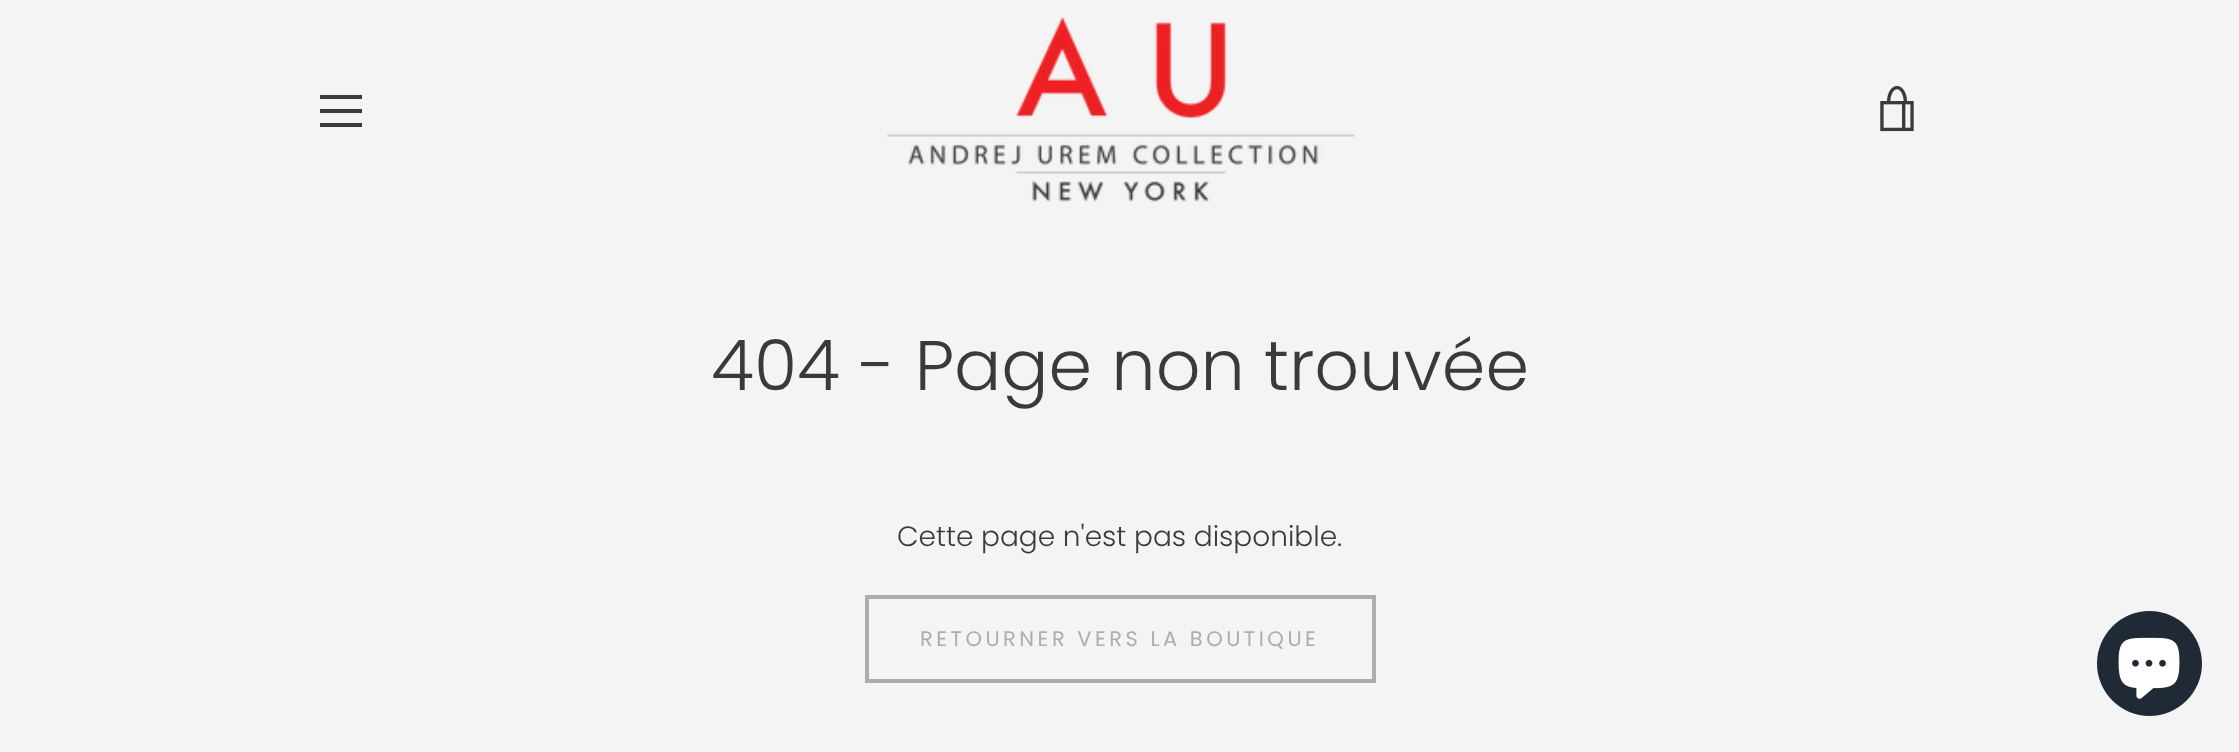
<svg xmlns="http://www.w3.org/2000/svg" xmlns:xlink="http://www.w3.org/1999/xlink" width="2239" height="752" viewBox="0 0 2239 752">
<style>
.cls-1{font:300 70px Poppins;fill:#3a3a3a}
.cls-2{font:300 28px Poppins;fill:#3a3a3a}
.cls-3{font:21px Poppins;letter-spacing:3.5px;fill:#adacae}
</style>
<rect width="100%" height="100%" fill="#f4f4f4"/>
<rect fill="#3a3a3a" x="320" y="95" width="42" height="4"/>
<rect fill="#3a3a3a" x="320" y="109" width="42" height="4"/>
<rect fill="#3a3a3a" x="320" y="123" width="42" height="4"/>
<image xlink:href="image0.png" x="887" y="17" width="468" height="185"/>
<image xlink:href="image1.png" x="1880" y="85" width="34" height="47"/>
<rect fill="none" stroke="#adacae" stroke-width="4" x="867" y="597" width="507" height="84"/>
<circle fill="#202a36" cx="2149.5" cy="663.5" r="52.5"/>
<image xlink:href="image2.png" x="2118" y="637" width="62" height="62"/>
<text class="cls-1" x="711" y="390">404 - Page non trouvée</text>
<text class="cls-2" x="897" y="546">Cette page n'est pas disponible.</text>
<text class="cls-3" x="920" y="646">RETOURNER VERS LA BOUTIQUE</text>
</svg>
